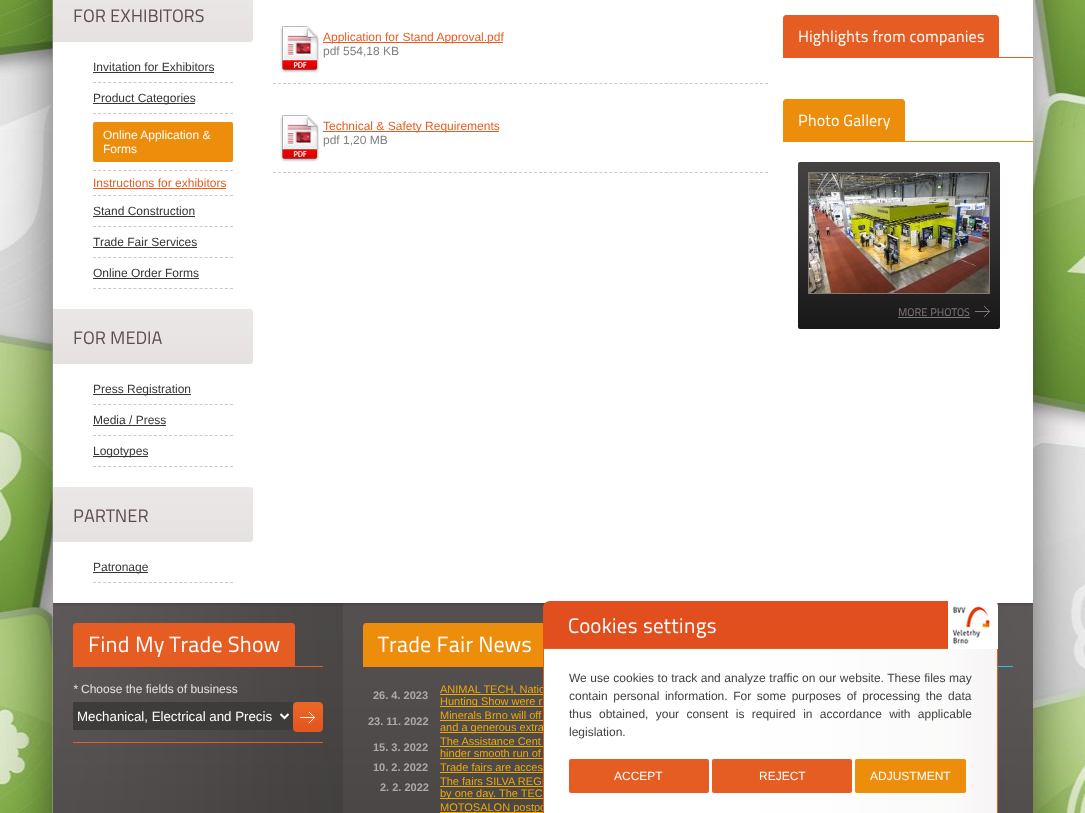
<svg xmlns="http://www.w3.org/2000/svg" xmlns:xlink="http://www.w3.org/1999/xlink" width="1085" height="813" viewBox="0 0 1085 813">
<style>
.cls-1{font:18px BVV;fill:#5d4d4d}
.cls-2{font:12px Liberation Sans;fill:#373434}
.cls-3{font:12px Liberation Sans;fill:#ffffff}
.cls-4{font:12px Liberation Sans;fill:#e65d23}
.cls-5{font:12px Liberation Sans;fill:#818181}
.cls-6{font:16px BVV;fill:#ffffff}
.cls-7{font:11px BVV;fill:#827777}
.cls-8{font:22px BVV;fill:#ffffff}
.cls-9{font:italic 12px Liberation Sans;fill:#e4e0e0}
.cls-10{font:12px Liberation Sans;fill:#e4e0e0}
.cls-11{font:13.3px Liberation Sans;fill:#ffffff}
.cls-12{font:bold 11px Liberation Sans;fill:#afaaaa}
.cls-13{font:11px Liberation Sans;fill:#f0a900}
.cls-14{font:21px BVV;fill:#ffffff}
.cls-15{font:12px Liberation Sans;fill:#414141}
</style>
<rect width="100%" height="100%" fill="#ffffff"/>
<image xlink:href="image0.png" x="0" y="0" width="1085" height="813"/>
<rect fill="#ffffff" x="53" y="0" width="980" height="603"/>
<image xlink:href="image1.png" x="53" y="0" width="200" height="42"/>
<path fill="none" stroke="#cdc8c8" stroke-dasharray="3 2.07" d="M93 82.5H233"/>
<rect fill="#373434" x="93" y="72" width="121" height="1"/>
<path fill="none" stroke="#cdc8c8" stroke-dasharray="3 2.07" d="M93 113.5H233"/>
<rect fill="#373434" x="93" y="103" width="102" height="1"/>
<path fill="none" stroke="#cdc8c8" stroke-dasharray="3 2.07" d="M93 170.5H233"/>
<rect fill="#ec8d0b" x="93" y="122" width="140" height="40" rx="2"/>
<path fill="none" stroke="#cdc8c8" stroke-dasharray="3 2.07" d="M93 195.5H233"/>
<rect fill="#e65d23" x="93" y="188" width="133" height="1"/>
<path fill="none" stroke="#cdc8c8" stroke-dasharray="3 2.07" d="M93 226.5H233"/>
<rect fill="#373434" x="93" y="216" width="102" height="1"/>
<path fill="none" stroke="#cdc8c8" stroke-dasharray="3 2.07" d="M93 257.5H233"/>
<rect fill="#373434" x="93" y="247" width="104" height="1"/>
<path fill="none" stroke="#cdc8c8" stroke-dasharray="3 2.07" d="M93 288.5H233"/>
<rect fill="#373434" x="93" y="278" width="106" height="1"/>
<image xlink:href="image2.png" x="53" y="309" width="200" height="55"/>
<path fill="none" stroke="#cdc8c8" stroke-dasharray="3 2.07" d="M93 404.5H233"/>
<rect fill="#373434" x="93" y="394" width="98" height="1"/>
<path fill="none" stroke="#cdc8c8" stroke-dasharray="3 2.07" d="M93 435.5H233"/>
<rect fill="#373434" x="93" y="425" width="73" height="1"/>
<path fill="none" stroke="#cdc8c8" stroke-dasharray="3 2.07" d="M93 466.5H233"/>
<rect fill="#373434" x="93" y="456" width="55" height="1"/>
<image xlink:href="image2.png" x="53" y="487" width="200" height="55"/>
<path fill="none" stroke="#cdc8c8" stroke-dasharray="3 2.07" d="M93 582.5H233"/>
<rect fill="#373434" x="93" y="572" width="55" height="1"/>
<image xlink:href="image3.png" x="280" y="26" width="39" height="47"/>
<path fill="none" stroke="#cdc8c8" stroke-dasharray="3 2.02" d="M273 83.5H768"/>
<rect fill="#e65d23" x="323" y="42" width="180" height="1"/>
<image xlink:href="image3.png" x="280" y="115" width="39" height="47"/>
<path fill="none" stroke="#cdc8c8" stroke-dasharray="3 2.02" d="M273 172.5H768"/>
<rect fill="#e65d23" x="323" y="131" width="176" height="1"/>
<rect fill="#e65d23" x="783" y="57" width="250" height="1"/>
<path fill="#e65d23" d="M786 15H996C997.5 15 999 16.5 999 18V57H783V18C783 16.5 784.5 15 786 15Z"/>
<rect fill="#ec8d0b" x="783" y="141" width="250" height="1"/>
<path fill="#ec8d0b" d="M786 99H902C903.5 99 905 100.5 905 102V141H783V102C783 100.5 784.5 99 786 99Z"/>
<image xlink:href="image4.png" x="798" y="162" width="202" height="167"/>
<rect fill="none" stroke="#827777" x="808.5" y="172.5" width="181" height="121"/>
<image xlink:href="image5.png" x="809" y="173" width="180" height="120"/>
<image xlink:href="image6.png" x="975" y="306" width="15" height="11"/>
<rect fill="#827777" x="898" y="317" width="72" height="1"/>
<image xlink:href="image7.png" x="53" y="603" width="980" height="210"/>
<rect fill="#e65d23" x="73" y="666" width="250" height="1"/>
<path fill="#e65d23" d="M76 623H292C293.5 623 295 624.5 295 626V666H73V626C73 624.5 74.5 623 76 623Z"/>
<rect fill="#e65d23" x="73" y="742" width="250" height="1"/>
<rect fill="#3e3c3b" x="73" y="702" width="220" height="28"/>
<path fill="none" stroke="#ffffff" stroke-width="2" d="M280.5 714L284.5 718L288.5 714"/>
<image xlink:href="image8.png" x="293" y="702" width="30" height="30"/>
<rect fill="#ec8d0b" x="363" y="666" width="180" height="1"/>
<path fill="#ec8d0b" d="M366 623H544C545.5 623 547 624.5 547 626V666H363V626C363 624.5 364.5 623 366 623Z"/>
<rect fill="#f0a900" x="440" y="694" width="103" height="1"/>
<rect fill="#f0a900" x="440" y="706" width="103" height="1"/>
<rect fill="#f0a900" x="440" y="720" width="103" height="1"/>
<rect fill="#f0a900" x="440" y="732" width="103" height="1"/>
<rect fill="#f0a900" x="440" y="746" width="103" height="1"/>
<rect fill="#f0a900" x="440" y="758" width="103" height="1"/>
<rect fill="#f0a900" x="440" y="772" width="103" height="1"/>
<rect fill="#f0a900" x="440" y="786" width="103" height="1"/>
<rect fill="#f0a900" x="440" y="798" width="103" height="1"/>
<rect fill="#f0a900" x="440" y="812" width="103" height="1"/>
<rect fill="#23c4e6" x="998" y="666" width="15" height="1"/>
<rect fill="#e65d23" x="997" y="649" width="1" height="164"/>
<text class="cls-1" x="73" y="22">FOR EXHIBITORS</text>
<text class="cls-2" x="93" y="71">Invitation for Exhibitors</text>
<text class="cls-2" x="93" y="102">Product Categories</text>
<text class="cls-3"><tspan x="103" y="139">Online Application &amp;</tspan><tspan x="103" y="153">Forms</tspan></text>
<text class="cls-4" x="93" y="187">Instructions for exhibitors</text>
<text class="cls-2" x="93" y="215">Stand Construction</text>
<text class="cls-2" x="93" y="246">Trade Fair Services</text>
<text class="cls-2" x="93" y="277">Online Order Forms</text>
<text class="cls-1" x="73" y="344">FOR MEDIA</text>
<text class="cls-2" x="93" y="393">Press Registration</text>
<text class="cls-2" x="93" y="424">Media / Press</text>
<text class="cls-2" x="93" y="455">Logotypes</text>
<text class="cls-1" x="73" y="522">PARTNER</text>
<text class="cls-2" x="93" y="571">Patronage</text>
<text class="cls-4" x="323" y="41">Application for Stand Approval.pdf</text>
<text class="cls-5" x="323" y="55">pdf 554,18 KB</text>
<text class="cls-4" x="323" y="130">Technical &amp; Safety Requirements</text>
<text class="cls-5" x="323" y="144">pdf 1,20 MB</text>
<text class="cls-6" x="798" y="42">Highlights from companies</text>
<text class="cls-6" x="798" y="126">Photo Gallery</text>
<text class="cls-7" x="898" y="316">MORE PHOTOS</text>
<text class="cls-8" x="88" y="652">Find My Trade Show</text>
<text class="cls-9" x="73" y="693">*</text>
<text class="cls-10" x="81" y="693">Choose the fields of business</text>
<text class="cls-11" x="77" y="721">Mechanical, Electrical and Precis</text>
<text class="cls-8" x="378" y="652">Trade Fair News</text>
<text class="cls-12" x="373" y="699">26. 4. 2023</text>
<text class="cls-13"><tspan x="440" y="693">ANIMAL TECH, Natio</tspan><tspan x="440" y="705">Hunting Show were r</tspan></text>
<text class="cls-12" x="368" y="725">23. 11. 2022</text>
<text class="cls-13"><tspan x="440" y="719">Minerals Brno will off</tspan><tspan x="440" y="731">and a generous extra</tspan></text>
<text class="cls-12" x="373" y="751">15. 3. 2022</text>
<text class="cls-13"><tspan x="440" y="745">The Assistance Cent</tspan><tspan x="440" y="757">hinder smooth run of</tspan></text>
<text class="cls-12" x="373" y="771">10. 2. 2022</text>
<text class="cls-13" x="440" y="771">Trade fairs are acces</text>
<text class="cls-12" x="380" y="791">2. 2. 2022</text>
<text class="cls-13"><tspan x="440" y="785">The fairs SILVA REGI</tspan><tspan x="440" y="797">by one day. The TEC</tspan><tspan x="440" y="811">MOTOSALON postpo</tspan></text>
<image xlink:href="image9.png" x="543" y="601" width="454" height="212"/>
<path fill="#e24f1e" d="M550 601H991C995 601 998 604 998 608V649H543V608C543 604 546 601 550 601Z"/>
<rect fill="#e65d23" x="543" y="648" width="405" height="1"/>
<text class="cls-14" x="568" y="633">Cookies settings</text>
<image xlink:href="image10.png" x="948" y="601" width="50" height="48"/>
<rect fill="#e65d23" x="543" y="649" width="1" height="164"/>
<text class="cls-15"><tspan x="569" y="682" word-spacing="0.25">We use cookies to track and analyze traffic on our website. These files may</tspan><tspan x="569" y="700" word-spacing="2.25">contain personal information. For some purposes of processing the data</tspan><tspan x="569" y="718" word-spacing="4">thus obtained, your consent is required in accordance with applicable</tspan><tspan x="569" y="736">legislation.</tspan></text>
<rect fill="#e65d23" x="569" y="759" width="140" height="34" rx="2"/>
<text class="cls-3" x="614" y="780">ACCEPT</text>
<rect fill="#e65d23" x="712" y="759" width="140" height="34" rx="2"/>
<text class="cls-3" x="759" y="780">REJECT</text>
<rect fill="#ec8d0b" x="855" y="759" width="111" height="34" rx="2"/>
<text class="cls-3" x="870" y="780">ADJUSTMENT</text>
</svg>
